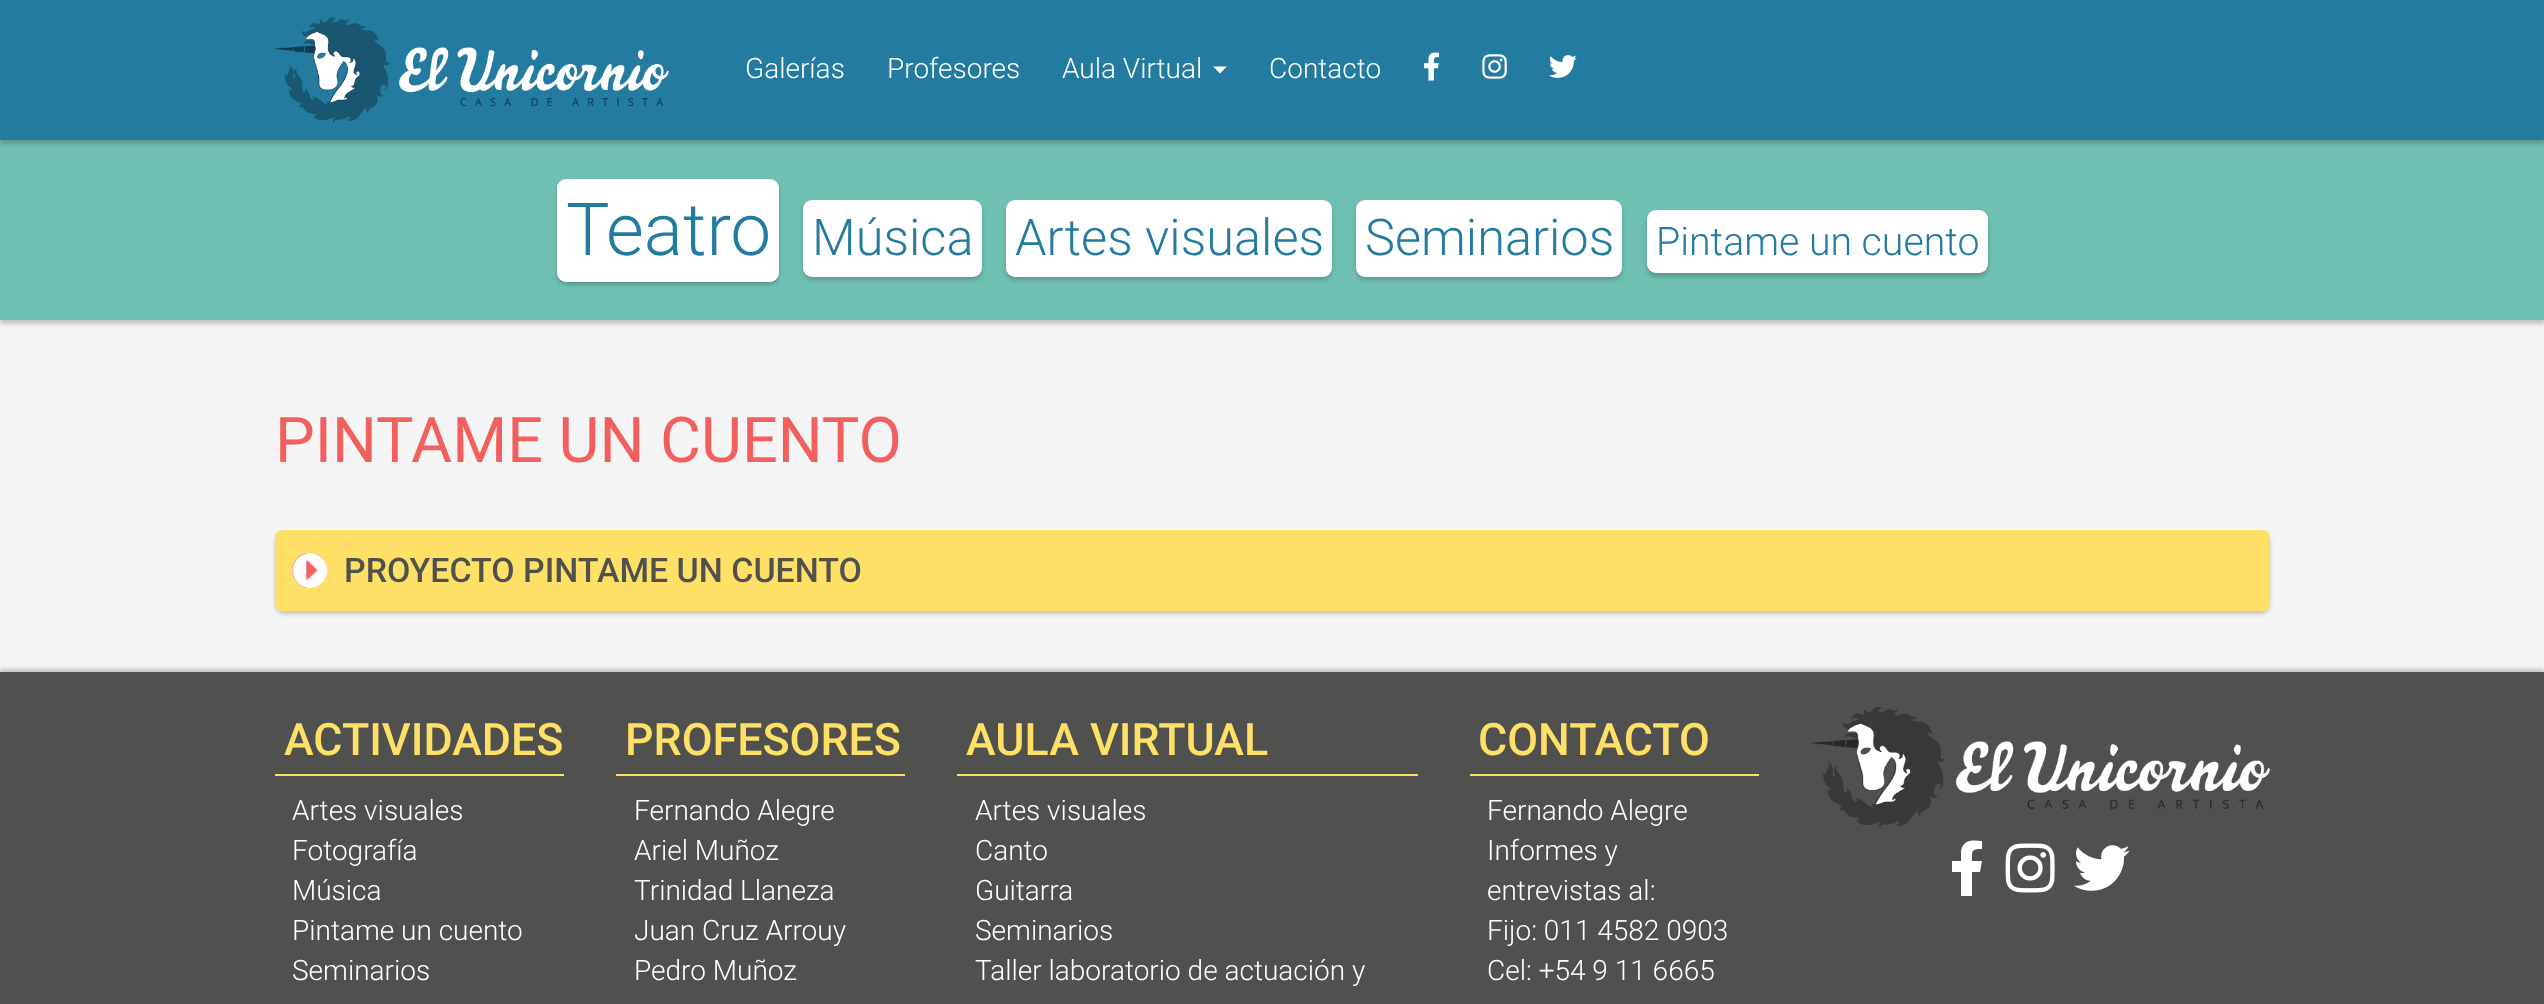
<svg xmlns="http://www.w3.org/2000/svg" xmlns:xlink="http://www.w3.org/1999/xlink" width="2544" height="1004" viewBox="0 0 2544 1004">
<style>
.cls-1{font:300 28px Roboto;fill:#ffffff}
.cls-2{font:300 73px Roboto;fill:#247ba0}
.cls-3{font:300 50.5px Roboto;fill:#247ba0}
.cls-4{font:300 39.25px Roboto;fill:#247ba0}
.cls-5{font:63px Roboto;fill:#f25f5c}
.cls-6{font:500 33.9px Roboto;fill:#50514f}
.cls-7{font:500 44.75px Roboto;fill:#ffe066}
</style>
<rect width="100%" height="100%" fill="#f5f5f5"/>
<rect fill="#000000" fill-opacity="0.2" filter="blur(2px)" x="0" y="144" width="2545" height="180"/>
<rect fill="#70c1b3" x="0" y="140" width="2544" height="180"/>
<rect fill="#000000" fill-opacity="0.2" filter="blur(2px)" x="0" y="4" width="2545" height="140"/>
<rect fill="#247ba0" x="0" y="0" width="2544" height="140"/>
<image xlink:href="image0.png" x="274" y="17" width="395" height="106"/>
<path fill="#ffffff" d="M1213 66.5H1227L1220 73.5Z"/>
<image xlink:href="image1.png" x="1424" y="52" width="15" height="29"/>
<image xlink:href="image2.png" x="1482" y="54" width="25" height="25"/>
<image xlink:href="image3.png" x="1549" y="55" width="28" height="23"/>
<rect fill="#000000" fill-opacity="0.2" filter="blur(2px)" x="557" y="182" width="222" height="103" rx="9"/>
<rect fill="#ffffff" x="557" y="179" width="222" height="103" rx="9"/>
<rect fill="#000000" fill-opacity="0.2" filter="blur(2px)" x="803" y="203" width="179" height="77" rx="9"/>
<rect fill="#ffffff" x="803" y="200" width="179" height="77" rx="9"/>
<rect fill="#000000" fill-opacity="0.2" filter="blur(2px)" x="1006" y="203" width="326" height="77" rx="9"/>
<rect fill="#ffffff" x="1006" y="200" width="326" height="77" rx="9"/>
<rect fill="#000000" fill-opacity="0.2" filter="blur(2px)" x="1356" y="203" width="266" height="77" rx="9"/>
<rect fill="#ffffff" x="1356" y="200" width="266" height="77" rx="9"/>
<rect fill="#000000" fill-opacity="0.2" filter="blur(2px)" x="1647" y="214" width="341" height="63" rx="9"/>
<rect fill="#ffffff" x="1647" y="210" width="341" height="63" rx="9"/>
<rect fill="#000000" fill-opacity="0.2" filter="blur(2px)" x="275" y="534" width="1995" height="80" rx="9"/>
<rect fill="#ffe066" x="275" y="530" width="1995" height="81" rx="7"/>
<circle fill="#f25f5c" cx="309.5" cy="570.5" r="17.5"/>
<image xlink:href="image4.png" x="292" y="553" width="36" height="35"/>
<rect fill="#000000" fill-opacity="0.2" filter="blur(2px)" x="0" y="669" width="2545" height="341"/>
<rect fill="#50514f" x="0" y="672" width="2544" height="332"/>
<rect fill="#ffe066" x="275" y="774" width="289" height="2"/>
<rect fill="#ffe066" x="616" y="774" width="289" height="2"/>
<rect fill="#ffe066" x="957" y="774" width="461" height="2"/>
<rect fill="#ffe066" x="1470" y="774" width="289" height="2"/>
<image xlink:href="image5.png" x="1811" y="707" width="459" height="121"/>
<path fill="#ffffff" d="M1980 872H1972V896H1961V872H1952V861H1961V851C1963 839 1973 840 1982 841V849C1971 849 1972 851 1972 861H1982Z"/>
<image xlink:href="image6.png" x="2005" y="843" width="50" height="50"/>
<image xlink:href="image7.png" x="2074" y="845" width="56" height="46"/>
<text class="cls-1" x="745" y="78">Galerías</text>
<text class="cls-1" x="887" y="78">Profesores</text>
<text class="cls-1" x="1062" y="78">Aula Virtual</text>
<text class="cls-1" x="1269" y="78">Contacto</text>
<text class="cls-2" x="566" y="255">Teatro</text>
<text class="cls-3" x="812" y="255">Música</text>
<text class="cls-3" x="1015" y="255">Artes visuales</text>
<text class="cls-3" x="1365" y="255">Seminarios</text>
<text class="cls-4" x="1656" y="255">Pintame un cuento</text>
<text class="cls-5" x="275" y="462">PINTAME UN CUENTO</text>
<text class="cls-6" x="344" y="582">PROYECTO PINTAME UN CUENTO</text>
<text class="cls-7" x="284" y="755">ACTIVIDADES</text>
<text class="cls-1"><tspan x="292" y="820">Artes visuales</tspan><tspan x="292" y="860">Fotografía</tspan><tspan x="292" y="900">Música</tspan><tspan x="292" y="940">Pintame un cuento</tspan><tspan x="292" y="980">Seminarios</tspan></text>
<text class="cls-7" x="625" y="755">PROFESORES</text>
<text class="cls-1"><tspan x="634" y="820">Fernando Alegre</tspan><tspan x="634" y="860">Ariel Muñoz</tspan><tspan x="634" y="900">Trinidad Llaneza</tspan><tspan x="634" y="940">Juan Cruz Arrouy</tspan><tspan x="634" y="980">Pedro Muñoz</tspan></text>
<text class="cls-7" x="966" y="755">AULA VIRTUAL</text>
<text class="cls-1"><tspan x="975" y="820">Artes visuales</tspan><tspan x="975" y="860">Canto</tspan><tspan x="975" y="900">Guitarra</tspan><tspan x="975" y="940">Seminarios</tspan><tspan x="975" y="980">Taller laboratorio de actuación y</tspan></text>
<text class="cls-7" x="1478" y="755">CONTACTO</text>
<text class="cls-1"><tspan x="1487" y="820">Fernando Alegre</tspan><tspan x="1487" y="860">Informes y</tspan><tspan x="1487" y="900">entrevistas al:</tspan><tspan x="1487" y="940">Fijo: 011 4582 0903</tspan><tspan x="1487" y="980">Cel: +54 9 11 6665</tspan></text>
</svg>
